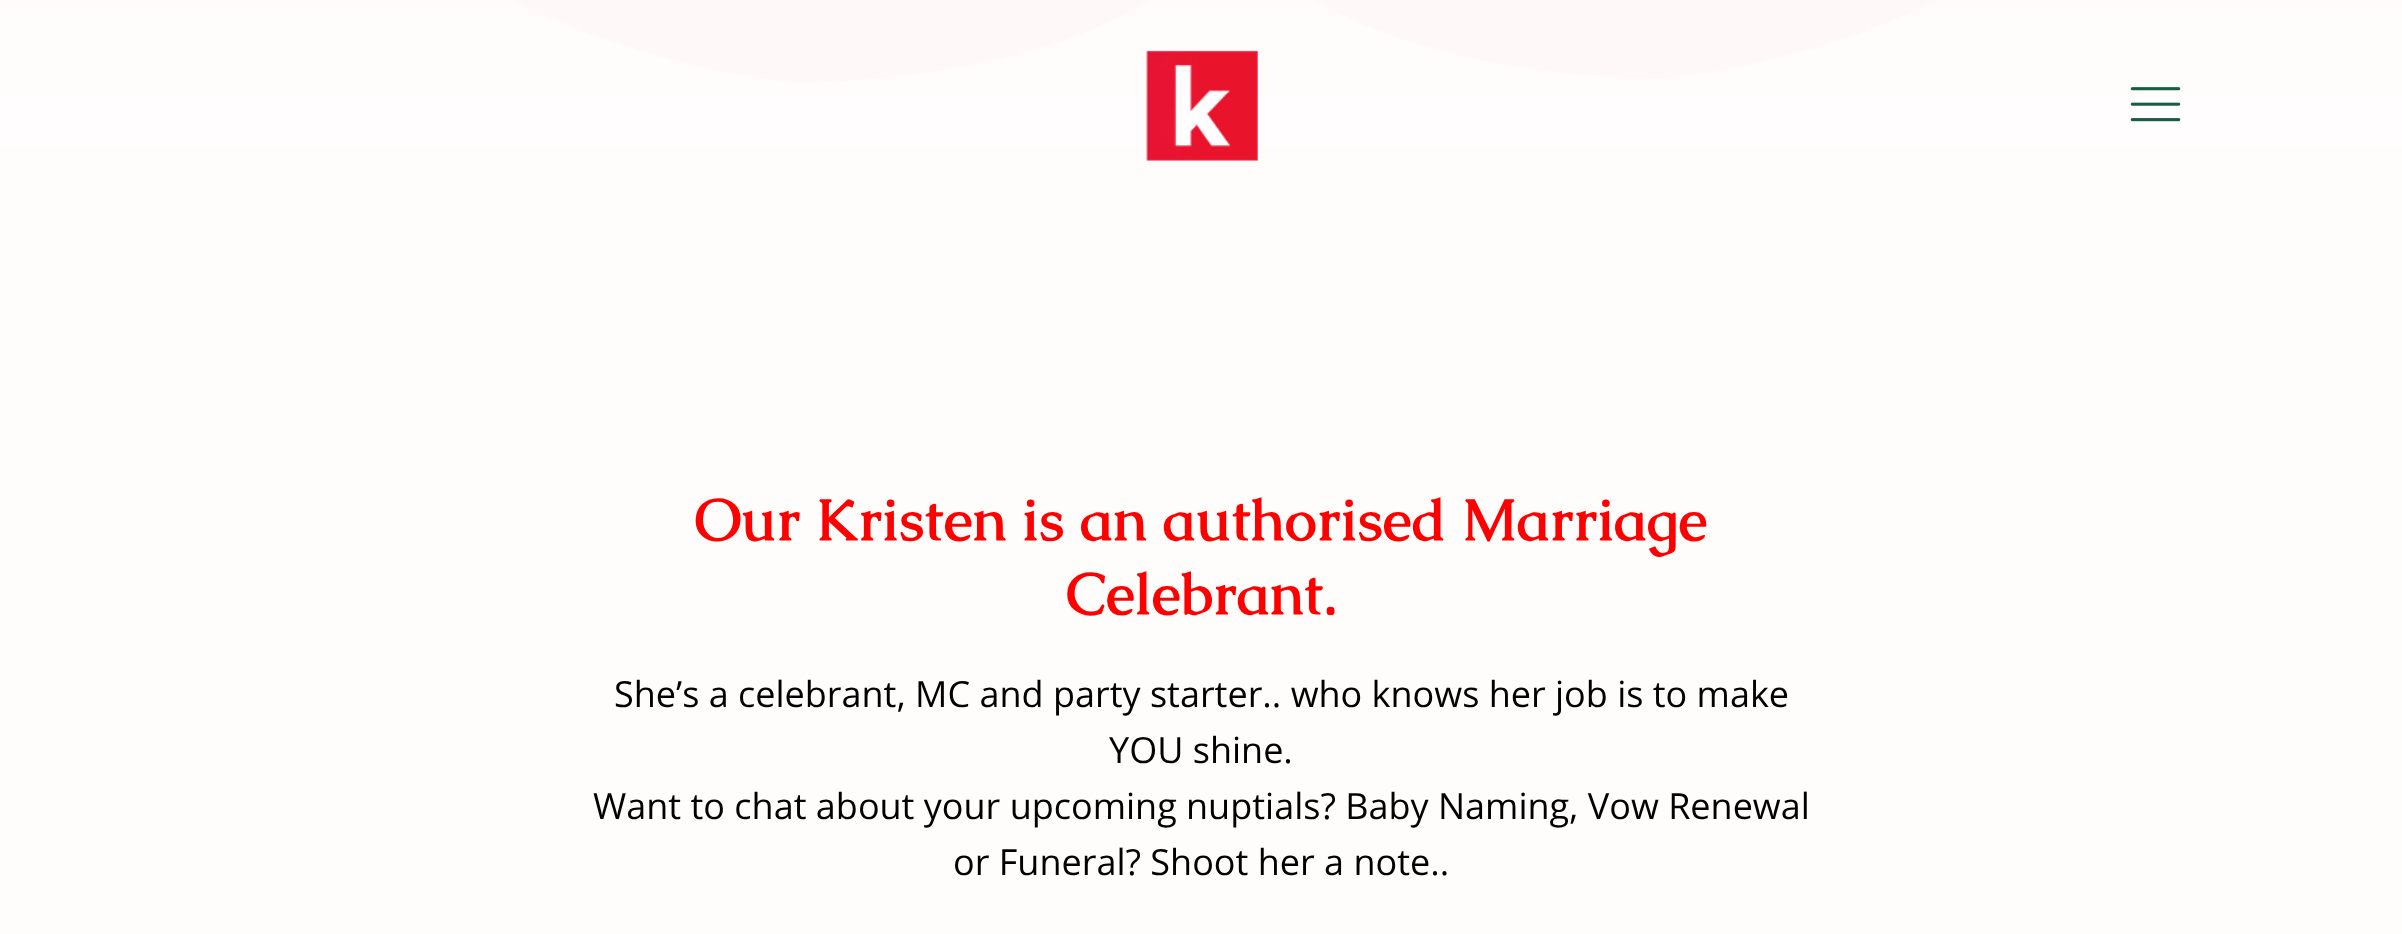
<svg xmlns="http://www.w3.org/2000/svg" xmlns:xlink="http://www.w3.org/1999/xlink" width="2402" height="934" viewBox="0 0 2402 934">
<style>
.cls-1{font:bold 58.5px Caudex;fill:#ff0000}
.cls-2{font:36px Open Sans;fill:#000000}
</style>
<rect width="100%" height="100%" fill="#ffffff"/>
<image xlink:href="image2.png" x="0" y="0" width="2402" height="146"/>
<rect fill="#fffcfc" x="0" y="146" width="2402" height="788"/>
<image xlink:href="image0.png" x="1146" y="50" width="112" height="111"/>
<image xlink:href="image1.png" x="2130" y="87" width="51" height="35"/>
<text class="cls-1" x="695" y="540">Our Kristen is an authorised Marriage</text>
<text class="cls-1" x="1066" y="614">Celebrant.</text>
<text class="cls-2" x="614" y="707">She’s a celebrant, MC and party starter.. who knows her job is to make</text>
<text class="cls-2" x="1109" y="763">YOU shine.</text>
<text class="cls-2" x="593" y="819">Want to chat about your upcoming nuptials? Baby Naming, Vow Renewal</text>
<text class="cls-2" x="953" y="875">or Funeral? Shoot her a note..</text>
</svg>
